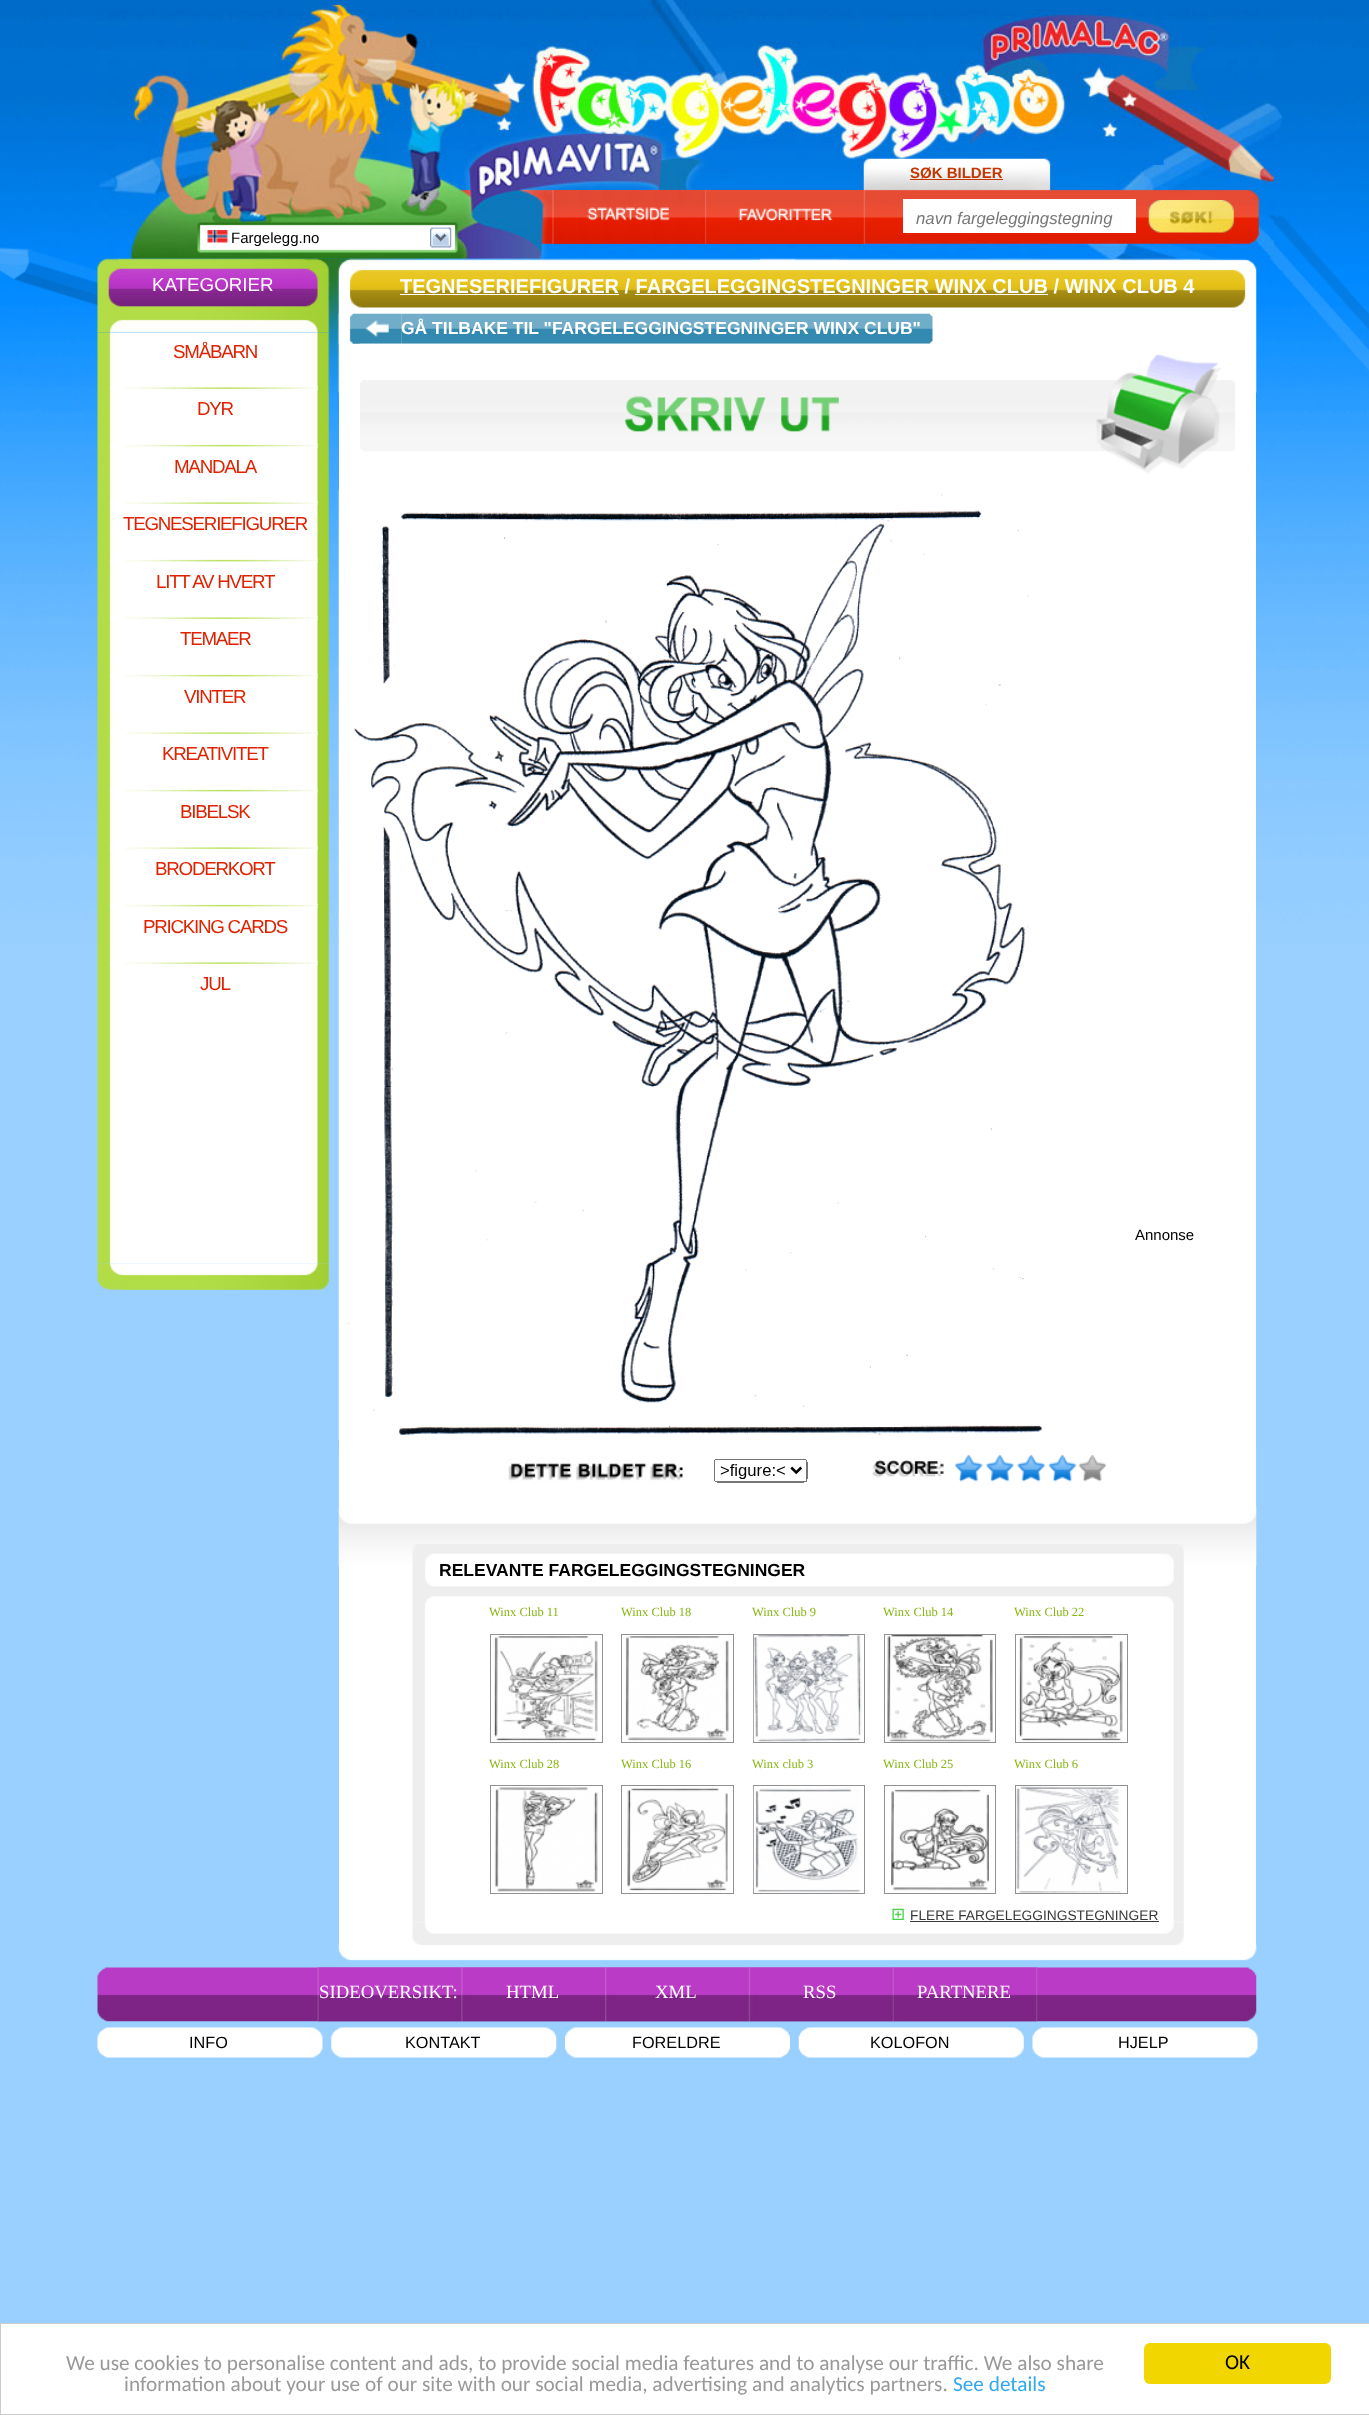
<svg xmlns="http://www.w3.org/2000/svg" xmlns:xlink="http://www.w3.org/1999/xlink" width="1369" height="2415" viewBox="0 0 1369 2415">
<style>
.cls-1{font:bold 15px Liberation Sans;fill:#c43700}
.cls-2{font:italic 16.75px Liberation Sans;fill:#777777}
.cls-3{font:15px Liberation Sans;fill:#000000}
.cls-4{font:18.75px Liberation Sans;fill:#ffffff}
.cls-5{font:18.75px Liberation Sans;letter-spacing:-1.25px;fill:#e02200}
.cls-6{font:bold 20px Liberation Sans;fill:#ffffff}
.cls-7{font:bold 17.5px Liberation Sans;fill:#ffffff}
.cls-8{font:bold 17.5px Liberation Sans;fill:#000000}
.cls-9{font:12.5px Liberation Serif;fill:#88b714}
.cls-10{font:13.75px Liberation Sans;fill:#383838}
.cls-11{font:18.75px Liberation Serif;fill:#ffffff}
.cls-12{font:16.25px Liberation Sans;fill:#000000}
.cls-13{font:21.25px Carlito;fill:#999999}
.cls-14{font:21.25px Carlito;fill:#31a8f0}
.cls-15{font:21.25px Carlito;fill:#000000}
</style>
<rect width="100%" height="100%" fill="#9ad0ff"/>
<image xlink:href="image0.png" x="0" y="0" width="1369" height="944"/>
<image xlink:href="image1.png" x="98" y="0" width="1176" height="259"/>
<rect fill="#c43700" x="910" y="179" width="93" height="1"/>
<image xlink:href="image2.png" x="552" y="190" width="155" height="54"/>
<image xlink:href="image3.png" x="706" y="190" width="159" height="54"/>
<rect fill="#ffffff" x="903" y="199" width="233" height="34"/>
<image xlink:href="image4.png" x="1148" y="200" width="86" height="33"/>
<image xlink:href="image5.png" x="197" y="222" width="261" height="31"/>
<image xlink:href="image6.png" x="207" y="230" width="21" height="13"/>
<image xlink:href="image7.png" x="430" y="227" width="22" height="21"/>
<image xlink:href="image8.png" x="97" y="258" width="232" height="75"/>
<image xlink:href="image9.png" x="97" y="332" width="232" height="932"/>
<image xlink:href="image10.png" x="110" y="386" width="208" height="4"/>
<image xlink:href="image11.png" x="110" y="443" width="208" height="5"/>
<image xlink:href="image10.png" x="110" y="501" width="208" height="4"/>
<image xlink:href="image11.png" x="110" y="558" width="208" height="5"/>
<image xlink:href="image10.png" x="110" y="616" width="208" height="4"/>
<image xlink:href="image11.png" x="110" y="673" width="208" height="5"/>
<image xlink:href="image10.png" x="110" y="731" width="208" height="4"/>
<image xlink:href="image11.png" x="110" y="788" width="208" height="5"/>
<image xlink:href="image10.png" x="110" y="846" width="208" height="4"/>
<image xlink:href="image11.png" x="110" y="903" width="208" height="5"/>
<image xlink:href="image10.png" x="110" y="961" width="208" height="4"/>
<image xlink:href="image12.png" x="97" y="1263" width="232" height="27"/>
<image xlink:href="image13.png" x="328" y="258" width="929" height="135"/>
<rect fill="#ffffff" x="400" y="294" width="219" height="1"/>
<rect fill="#ffffff" x="635" y="294" width="413" height="1"/>
<rect fill="#ffffff" x="339" y="308" width="917" height="1637"/>
<image xlink:href="image14.png" x="338" y="313" width="64" height="31"/>
<image xlink:href="image15.png" x="401" y="313" width="519" height="31"/>
<image xlink:href="image16.png" x="920" y="313" width="13" height="31"/>
<image xlink:href="image17.png" x="360" y="343" width="875" height="131"/>
<image xlink:href="image18.png" x="338" y="490" width="704" height="950"/>
<image xlink:href="image19.png" x="338" y="1450" width="919" height="56"/>
<image xlink:href="image20.png" x="338" y="1506" width="919" height="61"/>
<image xlink:href="image21.png" x="412" y="1544" width="772" height="61"/>
<image xlink:href="image22.png" x="412" y="1605" width="772" height="318"/>
<rect fill="none" stroke="#919191" x="490.5" y="1634.5" width="112" height="108"/>
<image xlink:href="image23.png" x="493" y="1636" width="105" height="105"/>
<rect fill="none" stroke="#919191" x="621.5" y="1634.5" width="112" height="108"/>
<image xlink:href="image24.png" x="625" y="1636" width="104" height="105"/>
<rect fill="none" stroke="#919191" x="753.5" y="1634.5" width="111" height="108"/>
<image xlink:href="image25.png" x="753" y="1635" width="109" height="107"/>
<rect fill="none" stroke="#919191" x="884.5" y="1634.5" width="111" height="108"/>
<image xlink:href="image26.png" x="887" y="1635" width="106" height="107"/>
<rect fill="none" stroke="#919191" x="1015.5" y="1634.5" width="112" height="108"/>
<image xlink:href="image27.png" x="1018" y="1636" width="105" height="105"/>
<rect fill="none" stroke="#919191" x="490.5" y="1785.5" width="112" height="108"/>
<image xlink:href="image28.png" x="494" y="1787" width="104" height="105"/>
<rect fill="none" stroke="#919191" x="621.5" y="1785.5" width="112" height="108"/>
<image xlink:href="image29.png" x="627" y="1788" width="101" height="103"/>
<rect fill="none" stroke="#919191" x="753.5" y="1785.5" width="111" height="108"/>
<image xlink:href="image30.png" x="753" y="1786" width="108" height="107"/>
<rect fill="none" stroke="#919191" x="884.5" y="1785.5" width="111" height="108"/>
<image xlink:href="image31.png" x="891" y="1789" width="98" height="102"/>
<rect fill="none" stroke="#919191" x="1015.5" y="1785.5" width="112" height="108"/>
<image xlink:href="image32.png" x="1016" y="1786" width="106" height="107"/>
<image xlink:href="image33.png" x="892" y="1908" width="12" height="12"/>
<rect fill="#383838" x="910" y="1921" width="249" height="1"/>
<image xlink:href="image34.png" x="412" y="1922" width="772" height="23"/>
<image xlink:href="image35.png" x="338" y="1945" width="919" height="16"/>
<image xlink:href="image36.png" x="97" y="1967" width="1160" height="55"/>
<image xlink:href="image37.png" x="317" y="1967" width="145" height="55"/>
<image xlink:href="image38.png" x="461" y="1967" width="144" height="55"/>
<image xlink:href="image39.png" x="605" y="1967" width="144" height="55"/>
<image xlink:href="image40.png" x="748" y="1967" width="145" height="55"/>
<image xlink:href="image41.png" x="892" y="1967" width="146" height="55"/>
<image xlink:href="image42.png" x="97" y="2027" width="226" height="31"/>
<image xlink:href="image43.png" x="331" y="2027" width="226" height="31"/>
<image xlink:href="image44.png" x="565" y="2027" width="225" height="31"/>
<image xlink:href="image45.png" x="798" y="2027" width="226" height="31"/>
<image xlink:href="image42.png" x="1032" y="2027" width="226" height="31"/>
<rect fill="#ffffff" stroke="#cccccc" x="0.5" y="2323.5" width="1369" height="91"/>
<rect fill="#f1d600" x="1144" y="2343" width="187" height="41" rx="6"/>
<text class="cls-1" x="910" y="178">SØK BILDER</text>
<text class="cls-2" x="916" y="224">navn fargeleggingstegning</text>
<text class="cls-3" x="231" y="243">Fargelegg.no</text>
<text class="cls-4" x="152" y="291">KATEGORIER</text>
<text class="cls-5" x="173" y="358">SMÅBARN</text>
<text class="cls-5" x="197" y="415">DYR</text>
<text class="cls-5" x="174" y="473">MANDALA</text>
<text class="cls-5" x="123" y="530">TEGNESERIEFIGURER</text>
<text class="cls-5" x="156" y="588">LITT AV HVERT</text>
<text class="cls-5" x="180" y="645">TEMAER</text>
<text class="cls-5" x="184" y="703">VINTER</text>
<text class="cls-5" x="162" y="760">KREATIVITET</text>
<text class="cls-5" x="180" y="818">BIBELSK</text>
<text class="cls-5" x="155" y="875">BRODERKORT</text>
<text class="cls-5" x="143" y="933">PRICKING CARDS</text>
<text class="cls-5" x="200" y="990">JUL</text>
<text class="cls-6" x="400" y="293">TEGNESERIEFIGURER / FARGELEGGINGSTEGNINGER WINX CLUB / WINX CLUB 4</text>
<text class="cls-7" x="401" y="334">GÅ TILBAKE TIL "FARGELEGGINGSTEGNINGER WINX CLUB"</text>
<text class="cls-3" x="1135" y="1240">Annonse</text>
<text class="cls-8" x="439" y="1576">RELEVANTE FARGELEGGINGSTEGNINGER</text>
<text class="cls-9" x="489" y="1616">Winx Club 11</text>
<text class="cls-9" x="621" y="1616">Winx Club 18</text>
<text class="cls-9" x="752" y="1616">Winx Club 9</text>
<text class="cls-9" x="883" y="1616">Winx Club 14</text>
<text class="cls-9" x="1014" y="1616">Winx Club 22</text>
<text class="cls-9" x="489" y="1768">Winx Club 28</text>
<text class="cls-9" x="621" y="1768">Winx Club 16</text>
<text class="cls-9" x="752" y="1768">Winx club 3</text>
<text class="cls-9" x="883" y="1768">Winx Club 25</text>
<text class="cls-9" x="1014" y="1768">Winx Club 6</text>
<text class="cls-10" x="910" y="1920">FLERE FARGELEGGINGSTEGNINGER</text>
<text class="cls-11" x="319" y="1998">SIDEOVERSIKT:</text>
<text class="cls-11" x="506" y="1998">HTML</text>
<text class="cls-11" x="655" y="1998">XML</text>
<text class="cls-11" x="803" y="1998">RSS</text>
<text class="cls-11" x="917" y="1998">PARTNERE</text>
<text class="cls-12" x="189" y="2048">INFO</text>
<text class="cls-12" x="405" y="2048">KONTAKT</text>
<text class="cls-12" x="632" y="2048">FORELDRE</text>
<text class="cls-12" x="870" y="2048">KOLOFON</text>
<text class="cls-12" x="1118" y="2048">HJELP</text>
<text class="cls-13" x="66" y="2370">We use cookies to personalise content and ads, to provide social media features and to analyse our traffic. We also share</text>
<text class="cls-13" x="124" y="2391">information about your use of our site with our social media, advertising and analytics partners.</text>
<text class="cls-14" x="953" y="2391">See details</text>
<text class="cls-15" x="1225" y="2369">OK</text>
</svg>
